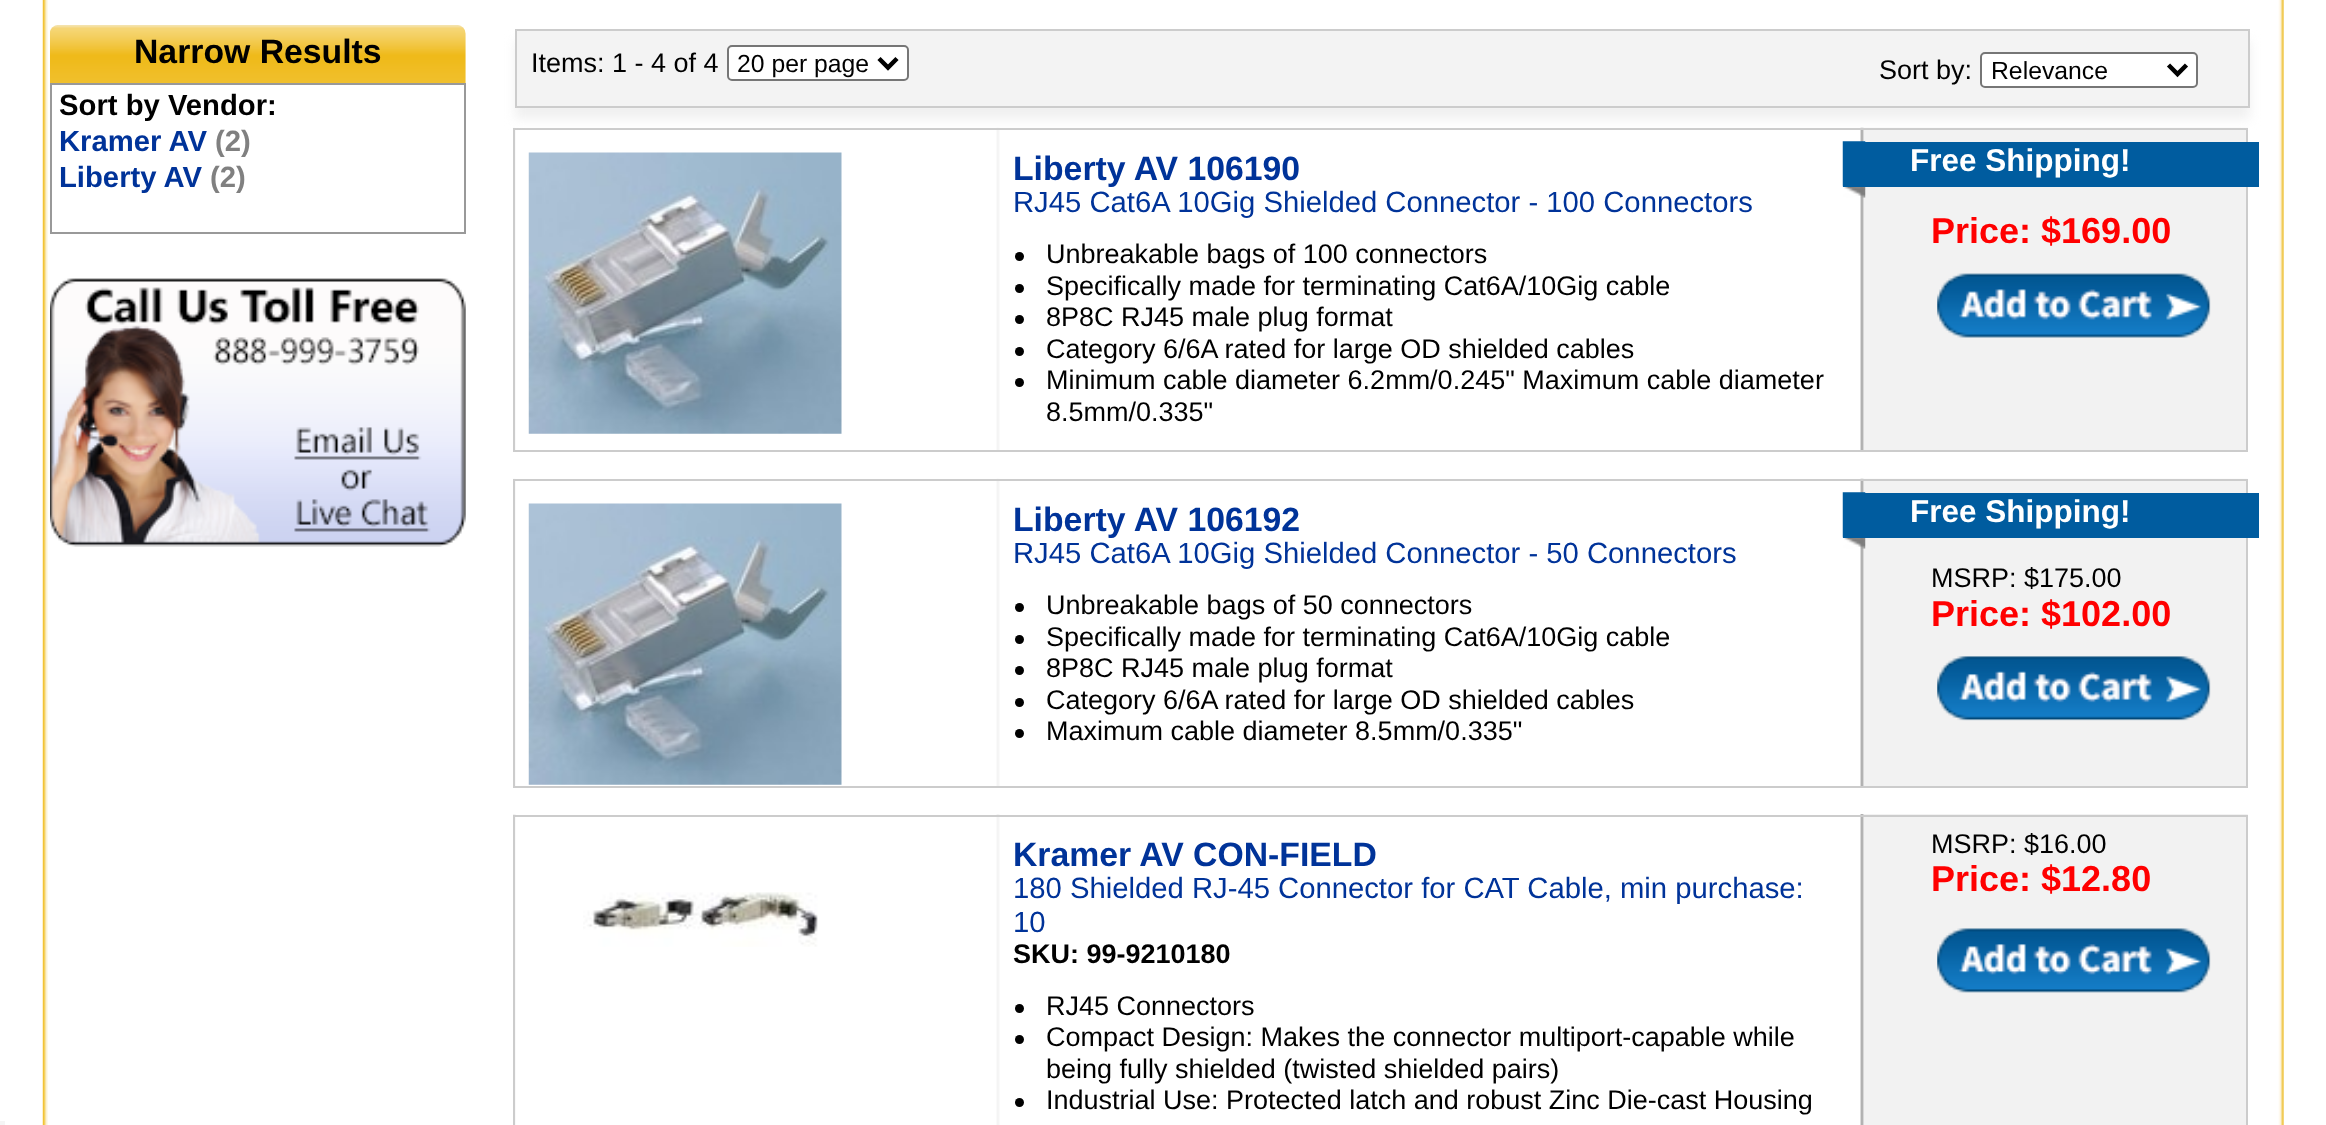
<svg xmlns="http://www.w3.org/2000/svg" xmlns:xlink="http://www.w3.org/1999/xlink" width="2326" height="1125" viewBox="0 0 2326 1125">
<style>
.cls-1{font:bold 33.75px Liberation Sans;fill:#000000}
.cls-2{font:bold 29.25px Liberation Sans;fill:#000000}
.cls-3{font:bold 29.25px Liberation Sans;fill:#003399}
.cls-4{font:bold 29.25px Liberation Sans;fill:#808080}
.cls-5{font:27px Liberation Sans;fill:#000000}
.cls-6{font:24.75px Liberation Sans;fill:#000000}
.cls-7{font:bold 33.75px Liberation Sans;fill:#003399}
.cls-8{font:29.25px Liberation Sans;fill:#003399}
.cls-9{font:bold 31.5px Liberation Sans;fill:#ffffff}
.cls-10{font:bold 36px Liberation Sans;fill:#ff0000}
.cls-11{font:bold 27px Liberation Sans;fill:#000000}
</style>
<rect width="100%" height="100%" fill="#ffffff"/>
<image xlink:href="image0.png" x="42" y="0" width="2242" height="1125"/>
<image xlink:href="image1.png" x="50" y="25" width="416" height="58"/>
<rect fill="none" stroke="#999999" stroke-width="2" x="51" y="84" width="414" height="149"/>
<image xlink:href="image2.png" x="50" y="278" width="416" height="269"/>
<image xlink:href="image3.png" x="513" y="127" width="1735" height="323"/>
<rect fill="none" stroke="#cccccc" stroke-width="2" x="514" y="129" width="1733" height="322"/>
<rect fill="#f0f0f0" filter="blur(5.5px)" x="515" y="41" width="1735" height="78"/>
<rect fill="#f3f3f3" stroke="#cccccc" stroke-width="2" x="516" y="30" width="1733" height="77"/>
<rect fill="#ffffff" stroke="#767676" stroke-width="2" x="728" y="46" width="180" height="34" rx="4"/>
<path fill="none" stroke="#000000" stroke-width="4.5" d="M879 58.5L888 67.5L897 58.5"/>
<rect fill="#ffffff" stroke="#767676" stroke-width="2" x="1981" y="53" width="216" height="34" rx="4"/>
<path fill="none" stroke="#000000" stroke-width="4.5" d="M2168.5 65L2177.5 74L2186.5 65"/>
<image xlink:href="image4.png" x="528" y="152" width="314" height="282"/>
<circle fill="#000000" cx="1019.5" cy="256.5" r="4.5"/>
<circle fill="#000000" cx="1019.5" cy="288.5" r="4.5"/>
<circle fill="#000000" cx="1019.5" cy="319.5" r="4.5"/>
<circle fill="#000000" cx="1019.5" cy="351.5" r="4.5"/>
<circle fill="#000000" cx="1019.5" cy="382.5" r="4.5"/>
<image xlink:href="image5.png" x="1842" y="141" width="24" height="57"/>
<rect fill="#005c9f" x="1843" y="142" width="416" height="45"/>
<image xlink:href="image6.png" x="1937" y="273" width="274" height="65"/>
<image xlink:href="image7.png" x="513" y="478" width="1735" height="308"/>
<rect fill="none" stroke="#cccccc" stroke-width="2" x="514" y="480" width="1733" height="307"/>
<image xlink:href="image4.png" x="528" y="503" width="314" height="282"/>
<circle fill="#000000" cx="1019.5" cy="607.5" r="4.5"/>
<circle fill="#000000" cx="1019.5" cy="639.5" r="4.5"/>
<circle fill="#000000" cx="1019.5" cy="670.5" r="4.5"/>
<circle fill="#000000" cx="1019.5" cy="702.5" r="4.5"/>
<circle fill="#000000" cx="1019.5" cy="733.5" r="4.5"/>
<image xlink:href="image5.png" x="1842" y="492" width="24" height="57"/>
<rect fill="#005c9f" x="1843" y="493" width="416" height="45"/>
<image xlink:href="image8.png" x="1937" y="656" width="274" height="65"/>
<image xlink:href="image9.png" x="513" y="814" width="1735" height="311"/>
<rect fill="none" stroke="#cccccc" stroke-width="2" x="514" y="816" width="1733" height="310"/>
<image xlink:href="image10.png" x="583" y="892" width="235" height="55"/>
<circle fill="#000000" cx="1019.5" cy="1008.5" r="4.5"/>
<circle fill="#000000" cx="1019.5" cy="1039.5" r="4.5"/>
<circle fill="#000000" cx="1019.5" cy="1102.5" r="4.5"/>
<image xlink:href="image11.png" x="1937" y="928" width="274" height="65"/>
<rect fill="#f5f5f5" x="0" y="1121" width="5" height="4"/>
<text class="cls-1" x="134" y="63">Narrow Results</text>
<text class="cls-2" x="59" y="115">Sort by Vendor:</text>
<text class="cls-3" x="59" y="151">Kramer AV</text>
<text class="cls-4" x="215" y="151">(2)</text>
<text class="cls-3" x="59" y="187">Liberty AV</text>
<text class="cls-4" x="210" y="187">(2)</text>
<text class="cls-5" x="531" y="72">Items: 1 - 4 of 4</text>
<text class="cls-6" x="737" y="72">20 per page</text>
<text class="cls-5" x="1879" y="79">Sort by:</text>
<text class="cls-6" x="1991" y="79">Relevance</text>
<text class="cls-7" x="1013" y="180">Liberty AV 106190</text>
<text class="cls-8" x="1013" y="212">RJ45 Cat6A 10Gig Shielded Connector - 100 Connectors</text>
<text class="cls-5"><tspan x="1046" y="263">Unbreakable bags of 100 connectors</tspan><tspan x="1046" y="295">Specifically made for terminating Cat6A/10Gig cable</tspan><tspan x="1046" y="326">8P8C RJ45 male plug format</tspan><tspan x="1046" y="358">Category 6/6A rated for large OD shielded cables</tspan><tspan x="1046" y="389">Minimum cable diameter 6.2mm/0.245" Maximum cable diameter</tspan><tspan x="1046" y="421">8.5mm/0.335"</tspan></text>
<text class="cls-9" x="1910" y="171">Free Shipping!</text>
<text class="cls-10" x="1931" y="243">Price: $169.00</text>
<text class="cls-7" x="1013" y="531">Liberty AV 106192</text>
<text class="cls-8" x="1013" y="563">RJ45 Cat6A 10Gig Shielded Connector - 50 Connectors</text>
<text class="cls-5"><tspan x="1046" y="614">Unbreakable bags of 50 connectors</tspan><tspan x="1046" y="646">Specifically made for terminating Cat6A/10Gig cable</tspan><tspan x="1046" y="677">8P8C RJ45 male plug format</tspan><tspan x="1046" y="709">Category 6/6A rated for large OD shielded cables</tspan><tspan x="1046" y="740">Maximum cable diameter 8.5mm/0.335"</tspan></text>
<text class="cls-9" x="1910" y="522">Free Shipping!</text>
<text class="cls-5" x="1931" y="587">MSRP: $175.00</text>
<text class="cls-10" x="1931" y="626">Price: $102.00</text>
<text class="cls-7" x="1013" y="866">Kramer AV CON-FIELD</text>
<text class="cls-8"><tspan x="1013" y="898">180 Shielded RJ-45 Connector for CAT Cable, min purchase:</tspan><tspan x="1013" y="932">10</tspan></text>
<text class="cls-11" x="1013" y="963">SKU: 99-9210180</text>
<text class="cls-5"><tspan x="1046" y="1015">RJ45 Connectors</tspan><tspan x="1046" y="1046">Compact Design: Makes the connector multiport-capable while</tspan><tspan x="1046" y="1078">being fully shielded (twisted shielded pairs)</tspan><tspan x="1046" y="1109">Industrial Use: Protected latch and robust Zinc Die-cast Housing</tspan></text>
<text class="cls-5" x="1931" y="853">MSRP: $16.00</text>
<text class="cls-10" x="1931" y="891">Price: $12.80</text>
</svg>
